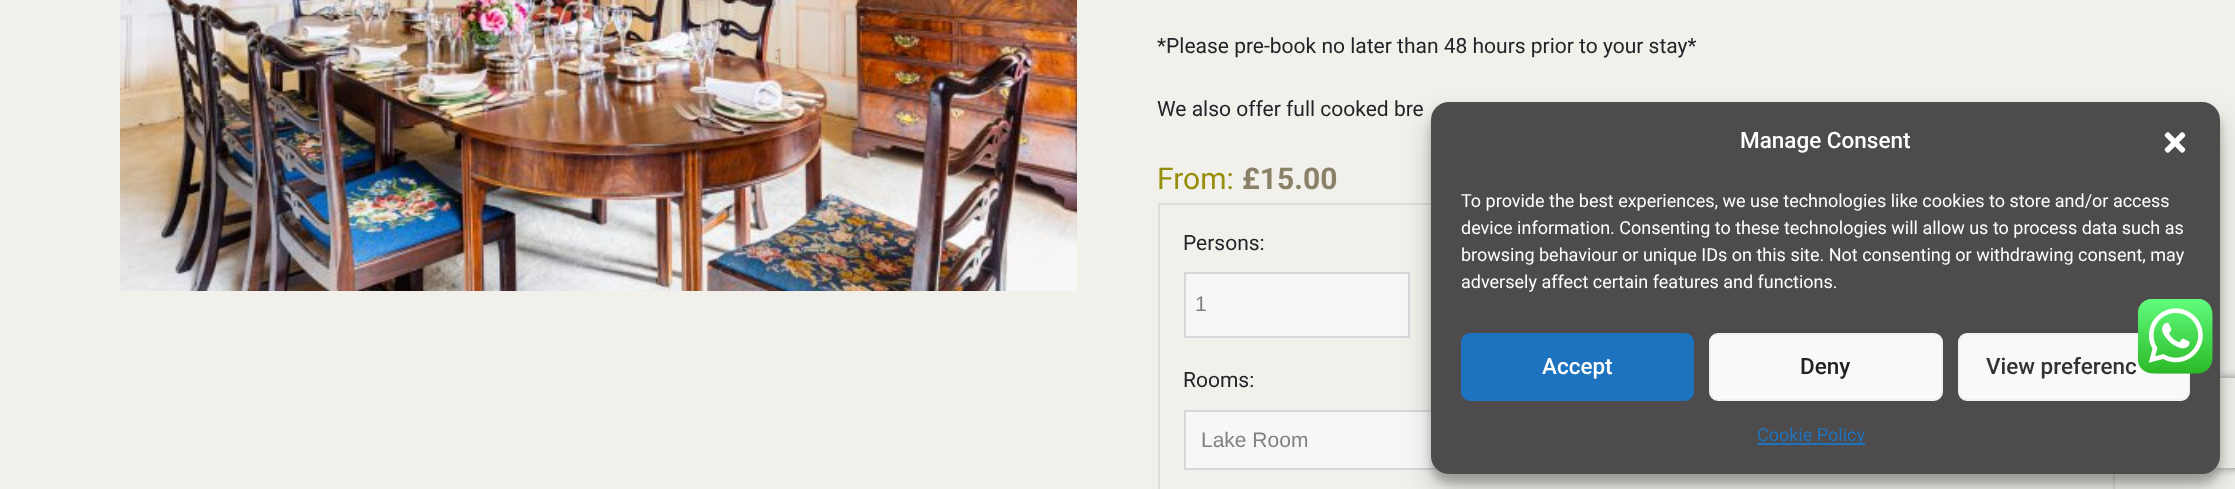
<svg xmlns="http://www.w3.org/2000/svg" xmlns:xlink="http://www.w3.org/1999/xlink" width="2235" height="489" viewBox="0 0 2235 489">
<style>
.cls-1{font:21px Roboto;fill:#212529}
.cls-2{font:30px Roboto;fill:#958e09}
.cls-3{font:bold 30px Roboto;fill:#898168}
.cls-4{font:21px Liberation Sans;fill:#818181}
.cls-5{font:500 22.5px Roboto;fill:#ffffff}
.cls-6{font:18px Roboto;fill:#ffffff}
.cls-7{font:500 22.5px Roboto;fill:#222222}
.cls-8{font:500 22.5px Roboto;fill:#333333}
.cls-9{font:18px Roboto;fill:#1e73be}
</style>
<defs>
<clipPath id="clip1"><path d="M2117 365H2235V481H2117ZM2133 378H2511C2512.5 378 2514 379.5 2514 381V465C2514 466.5 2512.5 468 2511 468H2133C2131.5 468 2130 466.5 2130 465V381C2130 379.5 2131.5 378 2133 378Z" clip-rule="evenodd"/></clipPath>
</defs>
<rect width="100%" height="100%" fill="#f2f0eb"/>
<image xlink:href="image0.png" x="120" y="0" width="957" height="291"/>
<rect fill="none" stroke="#dddddd" stroke-width="2" x="1159" y="204" width="955" height="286"/>
<rect fill="#f7f7f7" stroke="#d4d8d9" stroke-width="2" x="1185" y="273" width="224" height="64"/>
<rect fill="#f7f7f7" x="1186" y="412" width="250" height="56"/>
<rect fill="none" stroke="#d4d8d9" stroke-width="2" x="1185" y="411" width="904" height="58"/>
<rect fill="#000000" fill-opacity="0.23" filter="blur(4.5px)" x="1431" y="111" width="789" height="372" rx="18"/>
<rect fill="#000000" fill-opacity="0.19" filter="blur(15px)" x="1431" y="117" width="789" height="372" rx="18"/>
<g clip-path="url(#clip1)">
<rect fill="#808080" filter="blur(4px)" x="2130" y="378" width="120" height="90" rx="3"/>
</g>
<rect fill="#4d4b4b" x="1431" y="102" width="789" height="372" rx="18"/>
<rect fill="#f9f9f9" stroke="#f2f2f2" stroke-width="2" x="1959" y="334" width="230" height="66" rx="8"/>
<image xlink:href="image1.png" x="2138" y="299" width="75" height="75"/>
<image xlink:href="image2.png" x="2164" y="132" width="22" height="21"/>
<rect fill="#1e73be" stroke="#1e73be" stroke-width="2" x="1462" y="334" width="231" height="66" rx="8"/>
<rect fill="#f9f9f9" stroke="#f2f2f2" stroke-width="2" x="1710" y="334" width="232" height="66" rx="8"/>
<rect fill="#1e73be" x="1757" y="443" width="108" height="2"/>
<text class="cls-1" x="1157" y="53">*Please pre-book no later than 48 hours prior to your stay*</text>
<text class="cls-1" x="1157" y="116">We also offer full cooked bre</text>
<text class="cls-2" x="1157" y="189">From:</text>
<text class="cls-3" x="1242" y="189">£15.00</text>
<text class="cls-1" x="1183" y="250">Persons:</text>
<text class="cls-4" x="1195" y="311">1</text>
<text class="cls-1" x="1183" y="387">Rooms:</text>
<text class="cls-4" x="1201" y="447">Lake Room</text>
<text class="cls-5" x="1740" y="148">Manage Consent</text>
<text class="cls-6"><tspan x="1461" y="207">To provide the best experiences, we use technologies like cookies to store and/or access</tspan><tspan x="1461" y="234">device information. Consenting to these technologies will allow us to process data such as</tspan><tspan x="1461" y="261">browsing behaviour or unique IDs on this site. Not consenting or withdrawing consent, may</tspan><tspan x="1461" y="288">adversely affect certain features and functions.</tspan></text>
<text class="cls-5" x="1542" y="374">Accept</text>
<text class="cls-7" x="1800" y="374">Deny</text>
<text class="cls-8" x="1986" y="374">View preferenc</text>
<text class="cls-9" x="1757" y="441">Cookie Policy</text>
</svg>
